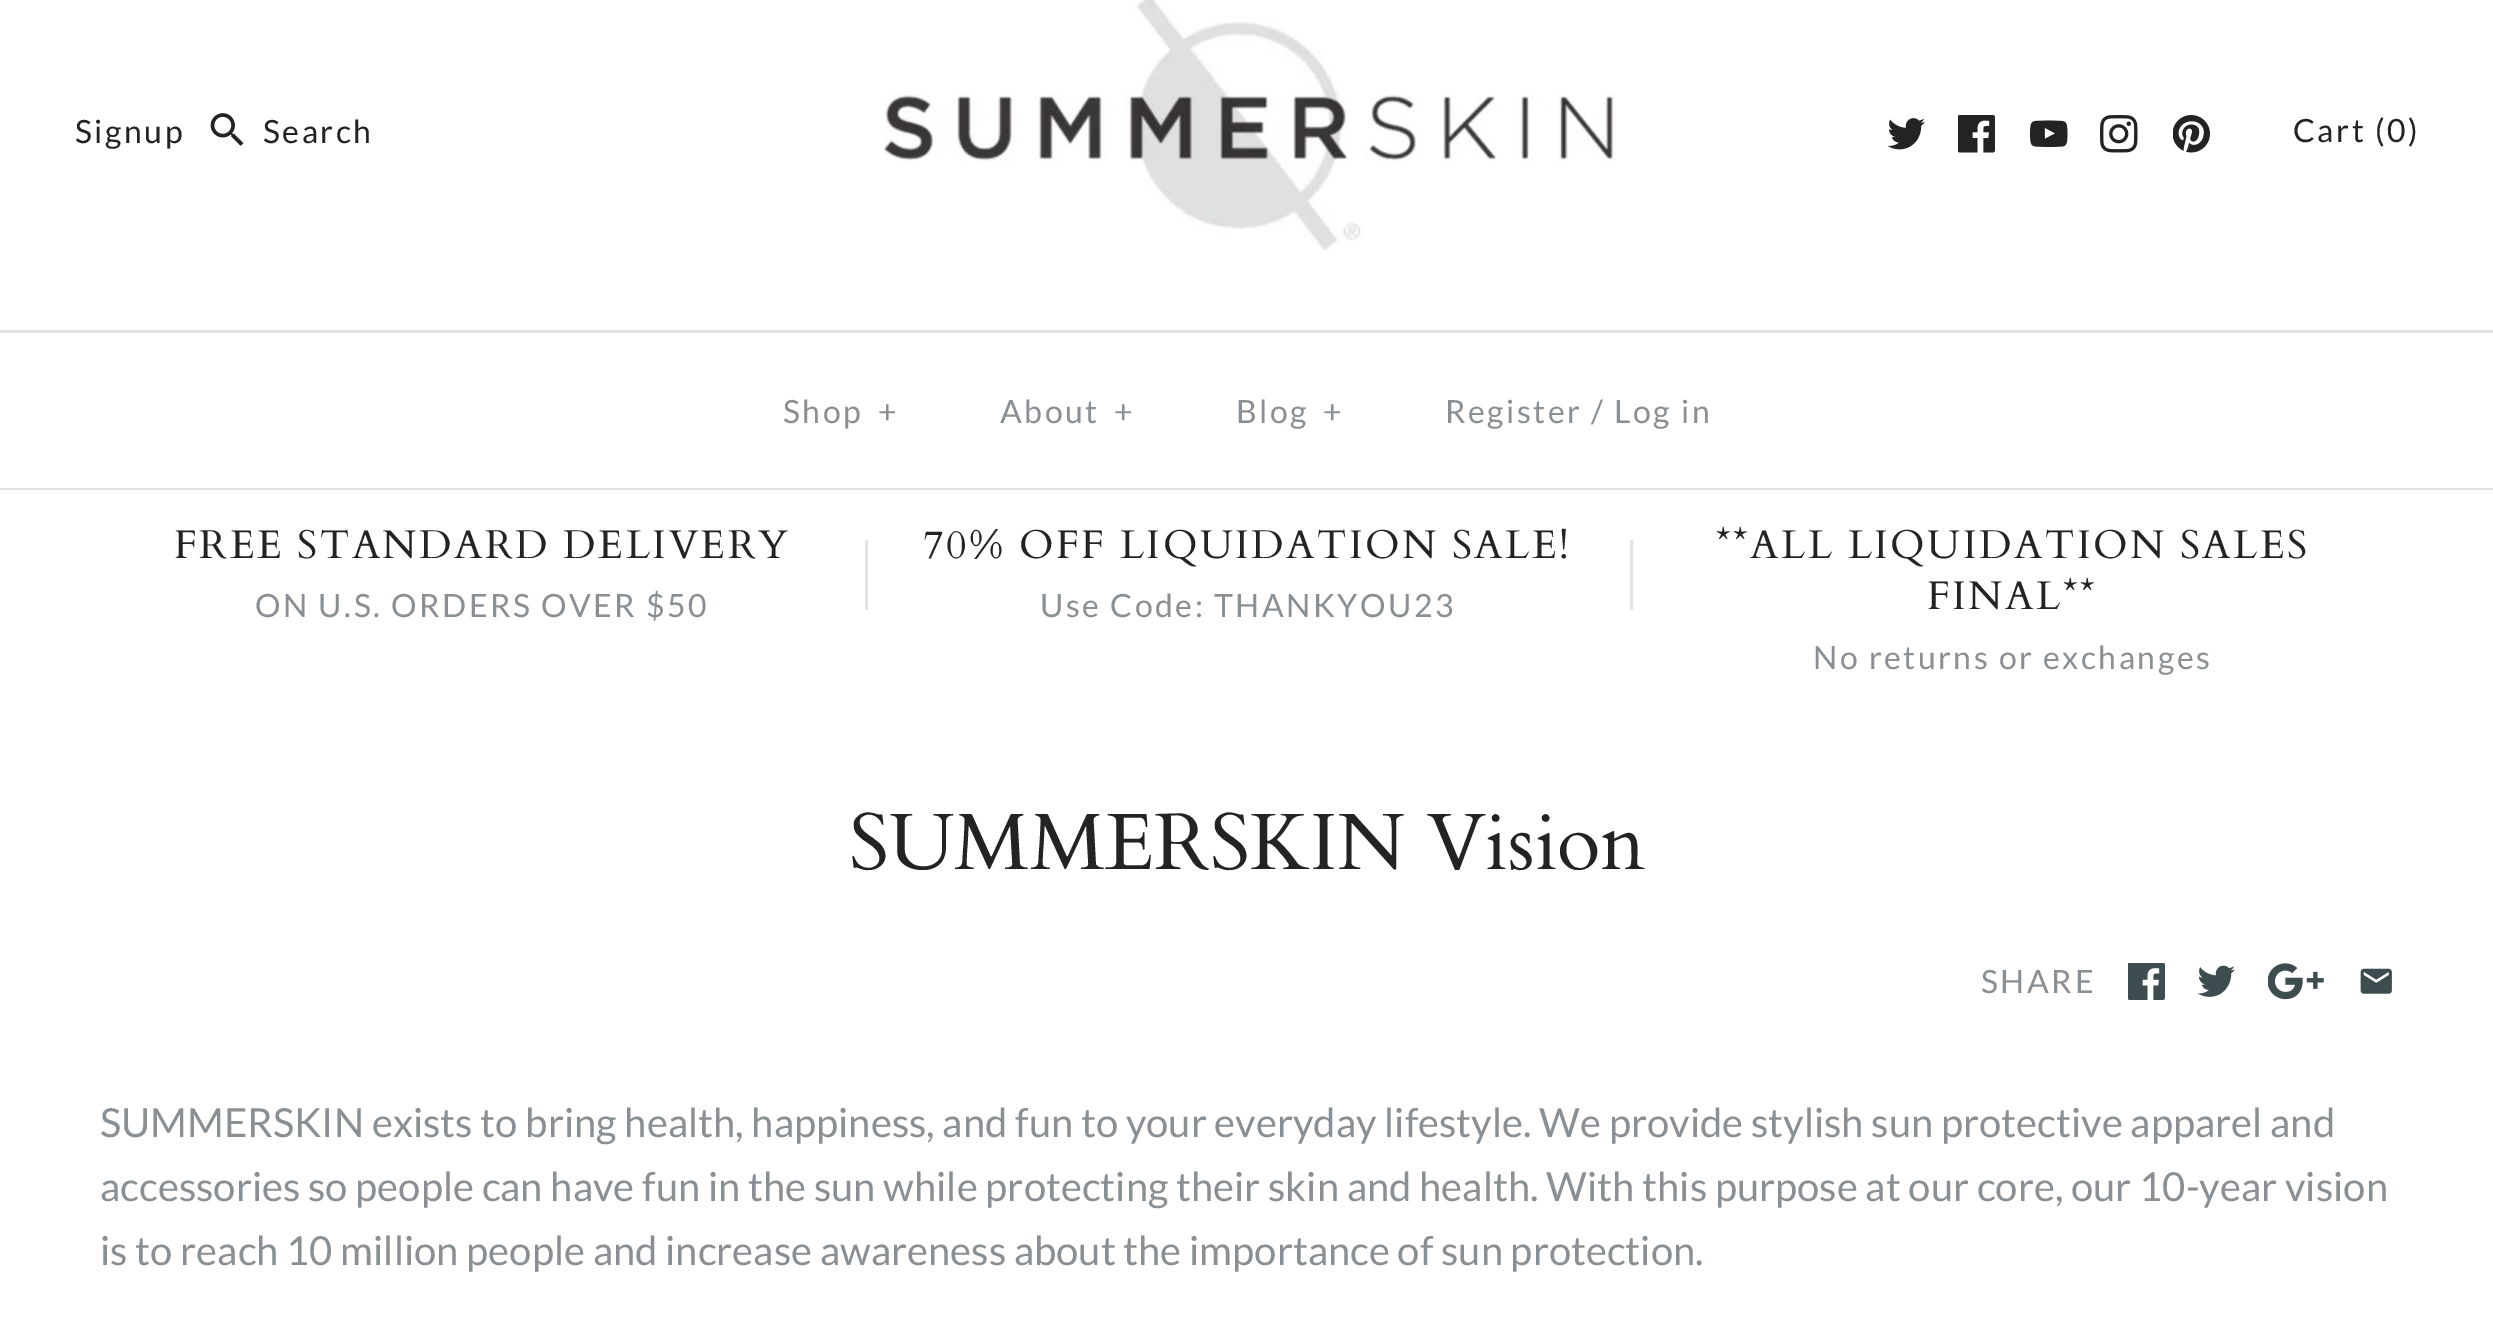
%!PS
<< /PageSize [2493 1321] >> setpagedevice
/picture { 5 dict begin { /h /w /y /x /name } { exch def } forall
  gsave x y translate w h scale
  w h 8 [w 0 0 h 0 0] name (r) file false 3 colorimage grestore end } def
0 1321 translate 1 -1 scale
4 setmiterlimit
1 setgray
0 0 2493 1321 rectfill
(img1.rgb) 884 0 732 251 picture
/Lato-Regular [32 0 0 -32 0 0] selectfont
0.137 setgray
75 143 moveto 2.5 0 (Signup) ashow
(img2.rgb) 210 113 34 33 picture
263 143 moveto 2.5 0 (Search) ashow
(img3.rgb) 1888 118 37 32 picture
(img4.rgb) 1958 115 37 38 picture
(img5.rgb) 2030 120 38 27 picture
(img6.rgb) 2100 115 38 38 picture
(img7.rgb) 2173 115 37 38 picture
2293 142 moveto 2.5 0 (Cart \(0\)) ashow
0.886 setgray
0 488 2493 2 rectfill
0 330 2493 3 rectfill
0.541 0.561 0.576 setrgbcolor
783 423 moveto 2.5 0 (Shop) ashow
878 423 moveto 2.5 0 (+) ashow
1000 423 moveto 2.5 0 (About) ashow
1114 423 moveto 2.5 0 (+) ashow
1236 423 moveto 2.5 0 (Blog) ashow
1323 423 moveto 2.5 0 (+) ashow
1445 423 moveto 2.5 0 (Register / Log in) ashow
/Cardo-Regular [40 0 0 -40 0 0] selectfont
0.137 setgray
174 558 moveto 2.5 0 (FREE STANDARD DELIVERY) ashow
/Lato-Regular [32 0 0 -32 0 0] selectfont
0.541 0.561 0.576 setrgbcolor
255 617 moveto 2.5 0 (ON U.S. ORDERS OVER $50) ashow
0.886 setgray
865 540 3 70 rectfill
/Cardo-Regular [40 0 0 -40 0 0] selectfont
0.137 setgray
923 558 moveto 2.5 0 (70% OFF LIQUIDATION SALE!) ashow
/Lato-Regular [32 0 0 -32 0 0] selectfont
0.541 0.561 0.576 setrgbcolor
1040 617 moveto 2.5 0 (Use Code: THANKYOU23) ashow
0.886 setgray
1630 540 3 70 rectfill
/Cardo-Regular [40 0 0 -40 0 0] selectfont
0.137 setgray
1716 558 moveto 2.5 0 (**ALL LIQUIDATION SALES) ashow
1927 609 moveto 2.5 0 (FINAL**) ashow
/Lato-Regular [32 0 0 -32 0 0] selectfont
0.541 0.561 0.576 setrgbcolor
1813 669 moveto 2.5 0 (No returns or exchanges) ashow
/Cardo-Regular [80 0 0 -80 0 0] selectfont
0.137 setgray
849 869 moveto (SUMMERSKIN Vision) show
/Lato-Regular [32 0 0 -32 0 0] selectfont
0.541 0.561 0.576 setrgbcolor
1981 993 moveto 2.5 0 (SHARE) ashow
(img8.rgb) 2128 963 37 37 picture
(img9.rgb) 2198 965 37 32 picture
(img10.rgb) 2268 963 56 37 picture
(img11.rgb) 2360 968 32 26 picture
/Lato-Regular [40 0 0 -40 0 0] selectfont
100 1137 moveto (SUMMERSKIN exists to bring health, happiness, and fun to your everyday lifestyle. We provide stylish sun protective apparel and) show
100 1201 moveto (accessories so people can have fun in the sun while protecting their skin and health. With this purpose at our core, our 10-year vision) show
100 1265 moveto (is to reach 10 million people and increase awareness about the importance of sun protection.) show
showpage
